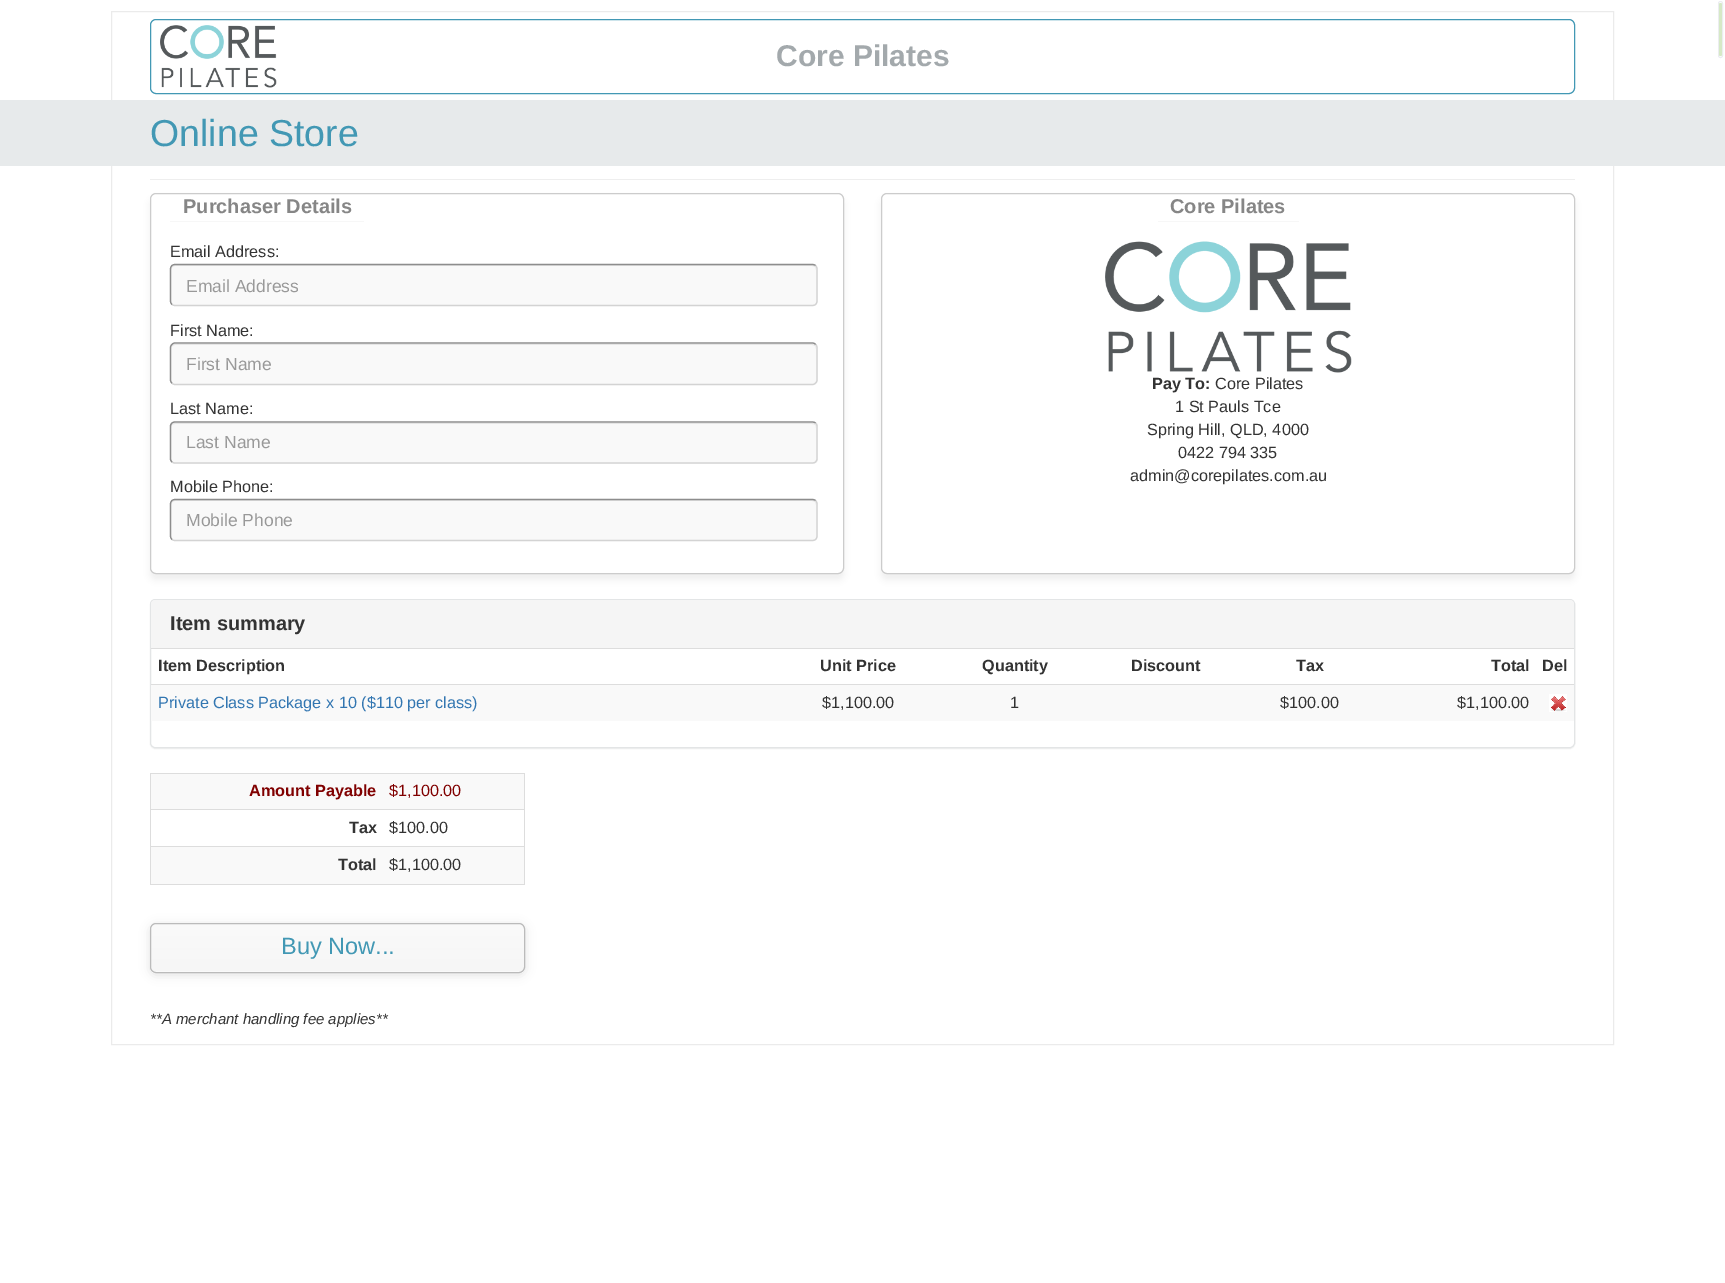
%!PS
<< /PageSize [1725 1283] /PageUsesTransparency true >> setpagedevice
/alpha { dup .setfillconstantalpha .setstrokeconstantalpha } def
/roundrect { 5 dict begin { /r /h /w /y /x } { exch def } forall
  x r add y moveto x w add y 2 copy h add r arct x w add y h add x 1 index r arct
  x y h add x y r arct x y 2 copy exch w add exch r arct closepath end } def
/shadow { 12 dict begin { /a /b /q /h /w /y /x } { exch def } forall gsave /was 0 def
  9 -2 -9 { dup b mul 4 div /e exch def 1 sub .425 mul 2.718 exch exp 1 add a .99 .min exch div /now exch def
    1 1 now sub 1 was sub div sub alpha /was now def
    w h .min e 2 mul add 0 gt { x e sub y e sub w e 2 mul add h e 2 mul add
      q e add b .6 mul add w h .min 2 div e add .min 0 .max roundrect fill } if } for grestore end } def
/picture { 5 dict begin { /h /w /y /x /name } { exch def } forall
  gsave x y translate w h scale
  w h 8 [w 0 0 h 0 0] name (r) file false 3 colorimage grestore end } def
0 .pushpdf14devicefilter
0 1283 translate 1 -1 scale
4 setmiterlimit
1 setgray
0 0 1725 1283 rectfill
0.922 setgray
111.5 11.5 1502 1033 rectstroke
0.922 0.929 0.941 setrgbcolor
1718.5 1.5 4 56 2 roundrect stroke
0.839 0.914 0.776 setrgbcolor
1719 3 3 53 1.5 roundrect fill
0.259 0.596 0.706 setrgbcolor
150.5 19.5 1424 74 5.5 roundrect stroke
(img1.rgb) 160 25 117 63 picture
/LiberationSans-Bold [30 0 0 -30 0 0] selectfont
0.639 0.663 0.675 setrgbcolor
776 66 moveto (Core Pilates) show
0.906 0.918 0.922 setrgbcolor
0 100 1725 66 rectfill
/LiberationSans-Regular [37.5 0 0 -37.5 0 0] selectfont
0.259 0.596 0.706 setrgbcolor
150 146 moveto (Online Store) show
0.933 setgray
150 179 1425 1 rectfill
gsave
newpath 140 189 moveto 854 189 lineto 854 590 lineto 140 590 lineto closepath 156 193 moveto 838 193 lineto 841.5 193 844 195.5 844 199 curveto 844 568 lineto 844 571.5 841.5 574 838 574 curveto 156 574 lineto 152.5 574 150 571.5 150 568 curveto 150 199 lineto 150 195.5 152.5 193 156 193 curveto closepath eoclip newpath
0.388 setgray
150 199 694 381 6 3 0.1 shadow
grestore
0.8 setgray
150.5 193.5 693 380 5.5 roundrect stroke
0.969 setgray
170 221 194 1 rectfill
/LiberationSans-Bold [20 0 0 -20 0 0] selectfont
0.525 setgray
183 213 moveto (Purchaser Details) show
/LiberationSans-Regular [16.25 0 0 -16.25 0 0] selectfont
0.2 setgray
170 257 moveto (Email Address:) show
0.976 setgray
170 264 648 42 5 roundrect fill
0.902 setgray
newpath 175 266 moveto 812 266 lineto 815 266 816 268 816 270 curveto 816 267 815 265 812 265 curveto 175 265 lineto 172 265 171 267 171 270 curveto 171 268 173 266 175 266 curveto closepath fill
0.827 setgray
1.2 setlinewidth
newpath 815.5 265.5 moveto 816.5 266.5 817 267.5 817 269 curveto 817 301 lineto 817 302.5 816.5 303.5 815.5 304.5 curveto 815 305 813.5 305.5 812.5 305.5 curveto 175 305.5 lineto 174 305.5 172.5 305 172 304.5 curveto stroke
0.553 setgray
newpath 172 304.5 moveto 171 303.5 170.5 302.5 170.5 301 curveto 170.5 269 lineto 170.5 267.5 171 266.5 172 265.5 curveto 172.5 265 174 264.5 175 264.5 curveto 812.5 264.5 lineto 813.5 264.5 815 265 815.5 265.5 curveto stroke
/LiberationSans-Regular [17.5 0 0 -17.5 0 0] selectfont
0.6 setgray
186 292 moveto (Email Address) show
/LiberationSans-Regular [16.25 0 0 -16.25 0 0] selectfont
0.2 setgray
170 336 moveto (First Name:) show
0.976 setgray
170 343 648 42 5 roundrect fill
0.902 setgray
newpath 175 345 moveto 812 345 lineto 815 345 816 347 816 349 curveto 816 346 815 344 812 344 curveto 175 344 lineto 172 344 171 346 171 349 curveto 171 347 173 345 175 345 curveto closepath fill
0.827 setgray
newpath 815.5 344.5 moveto 816.5 345 817 346.5 817 347.5 curveto 817 380 lineto 817 381 816.5 382.5 815.5 383 curveto 815 384 813.5 384.5 812.5 384.5 curveto 175 384.5 lineto 174 384.5 172.5 384 172 383 curveto stroke
0.553 setgray
newpath 172 383 moveto 171 382.5 170.5 381 170.5 380 curveto 170.5 347.5 lineto 170.5 346.5 171 345 172 344.5 curveto 172.5 343.5 174 343 175 343 curveto 812.5 343 lineto 813.5 343 815 343.5 815.5 344.5 curveto stroke
/LiberationSans-Regular [17.5 0 0 -17.5 0 0] selectfont
0.6 setgray
186 370 moveto (First Name) show
/LiberationSans-Regular [16.25 0 0 -16.25 0 0] selectfont
0.2 setgray
170 414 moveto (Last Name:) show
0.976 setgray
170 421 648 43 5 roundrect fill
0.902 setgray
newpath 175 424 moveto 812 424 lineto 815 424 816 425 816 428 curveto 816 425 815 423 812 423 curveto 175 423 lineto 172 423 171 425 171 428 curveto 171 425 173 424 175 424 curveto closepath fill
0.827 setgray
newpath 815.5 423 moveto 816.5 424 817 425 817 426 curveto 817 459 lineto 817 460 816.5 461 815.5 462 curveto 815 462.5 813.5 463 812.5 463 curveto 175 463 lineto 174 463 172.5 462.5 172 462 curveto stroke
0.553 setgray
newpath 172 462 moveto 171 461 170.5 460 170.5 459 curveto 170.5 426 lineto 170.5 425 171 424 172 423 curveto 172.5 422.5 174 422 175 422 curveto 812.5 422 lineto 813.5 422 815 422.5 815.5 423 curveto stroke
/LiberationSans-Regular [17.5 0 0 -17.5 0 0] selectfont
0.6 setgray
186 448 moveto (Last Name) show
/LiberationSans-Regular [16.25 0 0 -16.25 0 0] selectfont
0.2 setgray
170 492 moveto (Mobile Phone:) show
0.976 setgray
170 499 648 42 5 roundrect fill
0.902 setgray
newpath 175 501 moveto 812 501 lineto 815 501 816 503 816 505 curveto 816 502 815 500 812 500 curveto 175 500 lineto 172 500 171 502 171 505 curveto 171 503 173 501 175 501 curveto closepath fill
0.827 setgray
newpath 815.5 500.5 moveto 816.5 501.5 817 502.5 817 504 curveto 817 536 lineto 817 537.5 816.5 538.5 815.5 539.5 curveto 815 540 813.5 540.5 812.5 540.5 curveto 175 540.5 lineto 174 540.5 172.5 540 172 539.5 curveto stroke
0.553 setgray
newpath 172 539.5 moveto 171 538.5 170.5 537.5 170.5 536 curveto 170.5 504 lineto 170.5 502.5 171 501.5 172 500.5 curveto 172.5 500 174 499.5 175 499.5 curveto 812.5 499.5 lineto 813.5 499.5 815 500 815.5 500.5 curveto stroke
/LiberationSans-Regular [17.5 0 0 -17.5 0 0] selectfont
0.6 setgray
186 526 moveto (Mobile Phone) show
gsave
newpath 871 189 moveto 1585 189 lineto 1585 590 lineto 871 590 lineto closepath 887 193 moveto 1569 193 lineto 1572.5 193 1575 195.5 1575 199 curveto 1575 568 lineto 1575 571.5 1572.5 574 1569 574 curveto 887 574 lineto 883.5 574 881 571.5 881 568 curveto 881 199 lineto 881 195.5 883.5 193 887 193 curveto closepath eoclip newpath
0.388 setgray
881 199 694 381 6 3 0.1 shadow
grestore
0.8 setgray
1 setlinewidth
881.5 193.5 693 380 5.5 roundrect stroke
0.969 setgray
1158 221 141 1 rectfill
/LiberationSans-Bold [20 0 0 -20 0 0] selectfont
0.525 setgray
1170 213 moveto (Core Pilates) show
(img2.rgb) 1105 241 247 132 picture
/LiberationSans-Bold [16.25 0 0 -16.25 0 0] selectfont
0.2 setgray
1152 389 moveto (Pay To:) show
/LiberationSans-Regular [16.25 0 0 -16.25 0 0] selectfont
1215 389 moveto (Core Pilates) show
1175 412 moveto (1 St Pauls Tce) show
1147 435 moveto (Spring Hill, QLD, 4000) show
1178 458 moveto (0422 794 335) show
1130 481 moveto (admin@corepilates.com.au) show
0 setgray
150 600 1425 149 5 0.5 0.05 shadow
1 setgray
150 599 1425 149 5 roundrect fill
0.3 alpha
0.639 0.663 0.675 setrgbcolor
150.5 599.5 1424 148 4.5 roundrect stroke
1 alpha
0.961 setgray
newpath 155 600 moveto 1570 600 lineto 1572 600 1574 602 1574 604 curveto 1574 649 lineto 151 649 lineto 151 604 lineto 151 602 153 600 155 600 curveto closepath fill
0.867 setgray
151 648 1423 1 rectfill
/LiberationSans-Bold [20 0 0 -20 0 0] selectfont
0.2 setgray
170 630 moveto (Item summary) show
/LiberationSans-Bold [16.25 0 0 -16.25 0 0] selectfont
158 671 moveto (Item Description) show
820 671 moveto (Unit Price) show
982 671 moveto (Quantity) show
1131 671 moveto (Discount) show
1296 671 moveto (Tax) show
1491 671 moveto (Total) show
1542 671 moveto (Del) show
0.976 setgray
151 685 1423 36 rectfill
0.867 setgray
151 684 1423 1 rectfill
(img3.rgb) 1549 694 18 18 picture
/LiberationSans-Regular [16.25 0 0 -16.25 0 0] selectfont
0.196 0.463 0.694 setrgbcolor
158 708 moveto (Private Class Package x 10 \($110 per class\)) show
0.2 setgray
822 708 moveto ($1,100.00) show
1010 708 moveto (1) show
1280 708 moveto ($100.00) show
1457 708 moveto ($1,100.00) show
0.867 setgray
150 773 375 1 rectfill
524 773 1 112 rectfill
150 884 375 1 rectfill
150 773 1 112 rectfill
0.976 setgray
151 774 373 35 rectfill
/LiberationSans-Bold [16.25 0 0 -16.25 0 0] selectfont
0.502 0 0 setrgbcolor
249 796 moveto (Amount Payable) show
/LiberationSans-Regular [16.25 0 0 -16.25 0 0] selectfont
389 796 moveto ($1,100.00) show
/LiberationSans-Bold [16.25 0 0 -16.25 0 0] selectfont
0.2 setgray
349 833 moveto (Tax) show
0.867 setgray
150 809 375 1 rectfill
/LiberationSans-Regular [16.25 0 0 -16.25 0 0] selectfont
0.2 setgray
389 833 moveto ($100.00) show
0.976 setgray
151 847 373 37 rectfill
/LiberationSans-Bold [16.25 0 0 -16.25 0 0] selectfont
0.2 setgray
338 870 moveto (Total) show
0.867 setgray
150 846 375 1 rectfill
/LiberationSans-Regular [16.25 0 0 -16.25 0 0] selectfont
0.2 setgray
389 870 moveto ($1,100.00) show
0.388 setgray
150 925 375 50 6 5 0.2 shadow
gsave
150 923 375 50 6 roundrect clip newpath
gsave newpath 150 924 moveto 525 924 lineto 525 971 lineto 150 971 lineto closepath clip newpath
<< /ShadingType 2 /ColorSpace /DeviceRGB /Coords [338 924 338 971] /Extend [true true] /Function << /FunctionType 2 /Domain [0 1] /C0 [0.98 0.98 0.98] /C1 [0.965 0.965 0.965] /N 1 >> >> shfill grestore
gsave newpath 150 971 moveto 525 971 lineto 525 973 lineto 150 973 lineto closepath clip newpath
<< /ShadingType 2 /ColorSpace /DeviceRGB /Coords [338 971 338 1019] /Extend [true true] /Function << /FunctionType 2 /Domain [0 1] /C0 [0.98 0.98 0.98] /C1 [0.965 0.965 0.965] /N 1 >> >> shfill grestore
grestore
0.733 setgray
150.5 923.5 374 49 5.5 roundrect stroke
/LiberationSans-Regular [23.5 0 0 -23.5 0 0] selectfont
0.259 0.596 0.706 setrgbcolor
281 954 moveto (Buy Now...) show
/LiberationSans-Italic [15 0 0 -15 0 0] selectfont
0.2 setgray
150 1024 moveto (**A merchant handling fee applies**) show
.poppdf14devicefilter showpage
